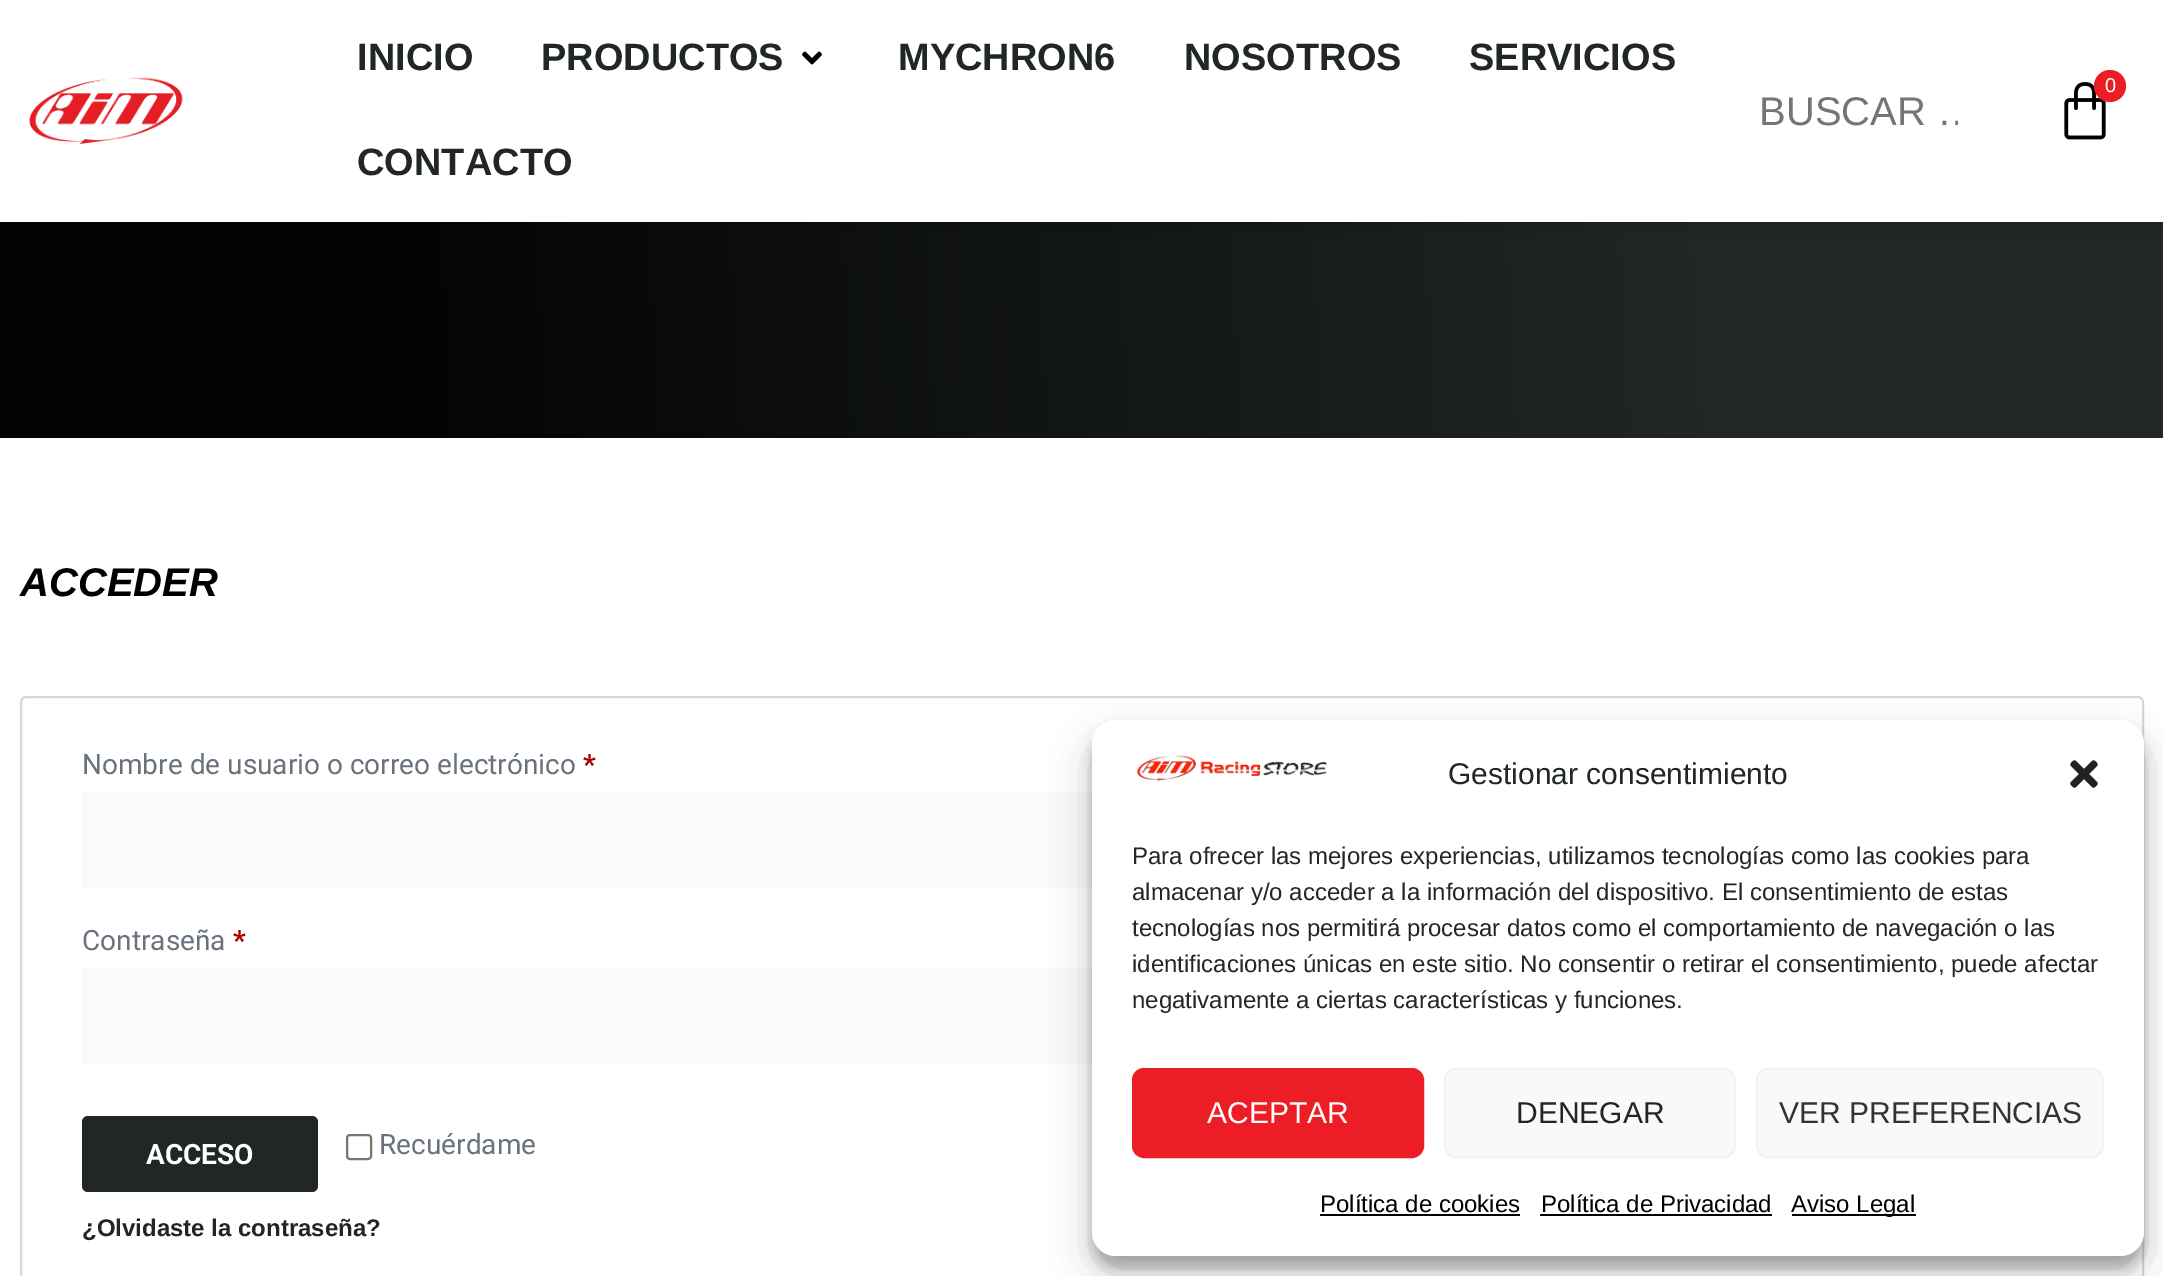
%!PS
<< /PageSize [2163 1276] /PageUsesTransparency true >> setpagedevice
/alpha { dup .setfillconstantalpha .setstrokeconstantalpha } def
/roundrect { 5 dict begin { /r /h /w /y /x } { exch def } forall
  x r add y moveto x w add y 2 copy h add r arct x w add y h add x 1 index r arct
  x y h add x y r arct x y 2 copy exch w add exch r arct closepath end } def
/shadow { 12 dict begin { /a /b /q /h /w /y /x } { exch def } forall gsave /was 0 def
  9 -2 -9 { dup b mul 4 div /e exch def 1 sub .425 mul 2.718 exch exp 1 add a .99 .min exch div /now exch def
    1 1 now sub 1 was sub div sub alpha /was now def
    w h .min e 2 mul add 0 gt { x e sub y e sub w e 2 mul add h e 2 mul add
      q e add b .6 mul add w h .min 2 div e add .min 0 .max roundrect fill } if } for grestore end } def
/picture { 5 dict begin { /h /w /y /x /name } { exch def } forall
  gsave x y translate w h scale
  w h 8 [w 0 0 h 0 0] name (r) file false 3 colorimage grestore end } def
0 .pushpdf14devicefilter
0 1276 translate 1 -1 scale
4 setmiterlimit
1 setgray
0 0 2163 1276 rectfill
gsave newpath 0 222 moveto 2163 222 lineto 2163 438 lineto 0 438 lineto closepath clip newpath
<< /ShadingType 2 /ColorSpace /DeviceRGB /Coords [-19 67 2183 -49] /Extend [true true] /Function << /FunctionType 3 /Domain [0 1] /Functions [<< /FunctionType 2 /Domain [0 1] /C0 [0.012 0.016 0.016] /C1 [0.012 0.016 0.016] /N 1 >> << /FunctionType 2 /Domain [0 1] /C0 [0.012 0.016 0.016] /C1 [0.129 0.149 0.149] /N 1 >> << /FunctionType 2 /Domain [0 1] /C0 [0.129 0.149 0.149] /C1 [0.129 0.149 0.149] /N 1 >>] /Bounds [0.18 0.77] /Encode [0 1 0 1 0 1] >> >> shfill grestore
0 setgray
0 0 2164 222 0 10 0.28 shadow
1 setgray
0 0 2163 222 rectfill
(img1.rgb) 29 77 154 67 picture
/LiberationSans-Bold [38 0 0 -38 0 0] selectfont
0.129 0.149 0.149 setrgbcolor
357 70 moveto (INICIO) show
541 70 moveto (PRODUCTOS) show
(img2.rgb) 802 51 20 14 picture
898 70 moveto (MYCHRON6) show
1184 70 moveto (NOSOTROS) show
1469 70 moveto (SERVICIOS) show
357 175 moveto (CONTACTO) show
(img3.rgb) 2064 82 42 58 picture
0.925 0.114 0.145 setrgbcolor
newpath 2110 86 16 0 360 arc closepath fill
/LiberationSans-Regular [20 0 0 -20 0 0] selectfont
1 setgray
2105 92 moveto (0) show
gsave
1758 90 200 46 rectclip
/LiberationSans-Regular [40 0 0 -40 0 0] selectfont
0.459 setgray
1759 125 moveto (BUSCAR …) show
grestore
/LiberationSans-BoldItalic [40 0 0 -40 0 0] selectfont
0 setgray
20 596 moveto (ACCEDER) show
0.835 0.847 0.863 setrgbcolor
2 setlinewidth
21 697 2122 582 5 roundrect stroke
/Roboto-Regular [28 0 0 -28 0 0] selectfont
0.412 0.447 0.49 setrgbcolor
82 774 moveto (Nombre de usuario o correo electrónico) show
/Roboto-Bold [28 0 0 -28 0 0] selectfont
0.667 0 0 setrgbcolor
583 774 moveto (*) show
0.976 0.98 0.98 setrgbcolor
82 792 1010 96 rectfill
/Roboto-Regular [28 0 0 -28 0 0] selectfont
0.412 0.447 0.49 setrgbcolor
82 950 moveto (Contraseña) show
/Roboto-Bold [28 0 0 -28 0 0] selectfont
0.667 0 0 setrgbcolor
233 950 moveto (*) show
0.976 0.98 0.98 setrgbcolor
82 968 1010 96 rectfill
0.129 0.149 0.149 setrgbcolor
82 1116 236 76 6 roundrect fill
1 setgray
146 1164 moveto (ACCESO) show
0.463 setgray
347 1135 24 24 3 roundrect stroke
/Roboto-Regular [28 0 0 -28 0 0] selectfont
0.412 0.447 0.49 setrgbcolor
379 1154 moveto (Recuérdame) show
/LiberationSans-Bold [24 0 0 -24 0 0] selectfont
0.129 0.149 0.149 setrgbcolor
82 1236 moveto (¿Olvidaste la contraseña?) show
0 setgray
1092 732 1052 536 24 6 0.23 shadow
1092 740 1052 536 24 20 0.19 shadow
1 setgray
1092 720 1052 536 24 roundrect fill
(img4.rgb) 1136 755 191 26 picture
/LiberationSans-Regular [30 0 0 -30 0 0] selectfont
0.129 0.149 0.149 setrgbcolor
1448 784 moveto (Gestionar consentimiento) show
(img5.rgb) 2070 760 28 28 picture
/LiberationSans-Regular [24 0 0 -24 0 0] selectfont
1132 864 moveto (Para ofrecer las mejores experiencias, utilizamos tecnologías como las cookies para) show
1132 900 moveto (almacenar y/o acceder a la información del dispositivo. El consentimiento de estas) show
1132 936 moveto (tecnologías nos permitirá procesar datos como el comportamiento de navegación o las) show
1132 972 moveto (identificaciones únicas en este sitio. No consentir o retirar el consentimiento, puede afectar) show
1132 1008 moveto (negativamente a ciertas características y funciones.) show
0.925 0.114 0.145 setrgbcolor
1133 1069 290 88 11 roundrect gsave fill grestore
stroke
/LiberationSans-Regular [30 0 0 -30 0 0] selectfont
1 setgray
1207 1123 moveto (ACEPTAR) show
0.976 setgray
1445 1069 290 88 11 roundrect gsave fill grestore
0.949 setgray
stroke
0.129 0.149 0.149 setrgbcolor
1516 1123 moveto (DENEGAR) show
0.976 setgray
1757 1069 346 88 11 roundrect gsave fill grestore
0.949 setgray
stroke
0.2 setgray
1779 1123 moveto (VER PREFERENCIAS) show
/LiberationSans-Regular [24 0 0 -24 0 0] selectfont
0 setgray
1320 1212 moveto (Política de cookies) show
1320 1214 200 2 rectfill
1541 1212 moveto (Política de Privacidad) show
1540 1214 232 2 rectfill
1792 1214 124 2 rectfill
1791 1212 moveto (Aviso Legal) show
.poppdf14devicefilter showpage
